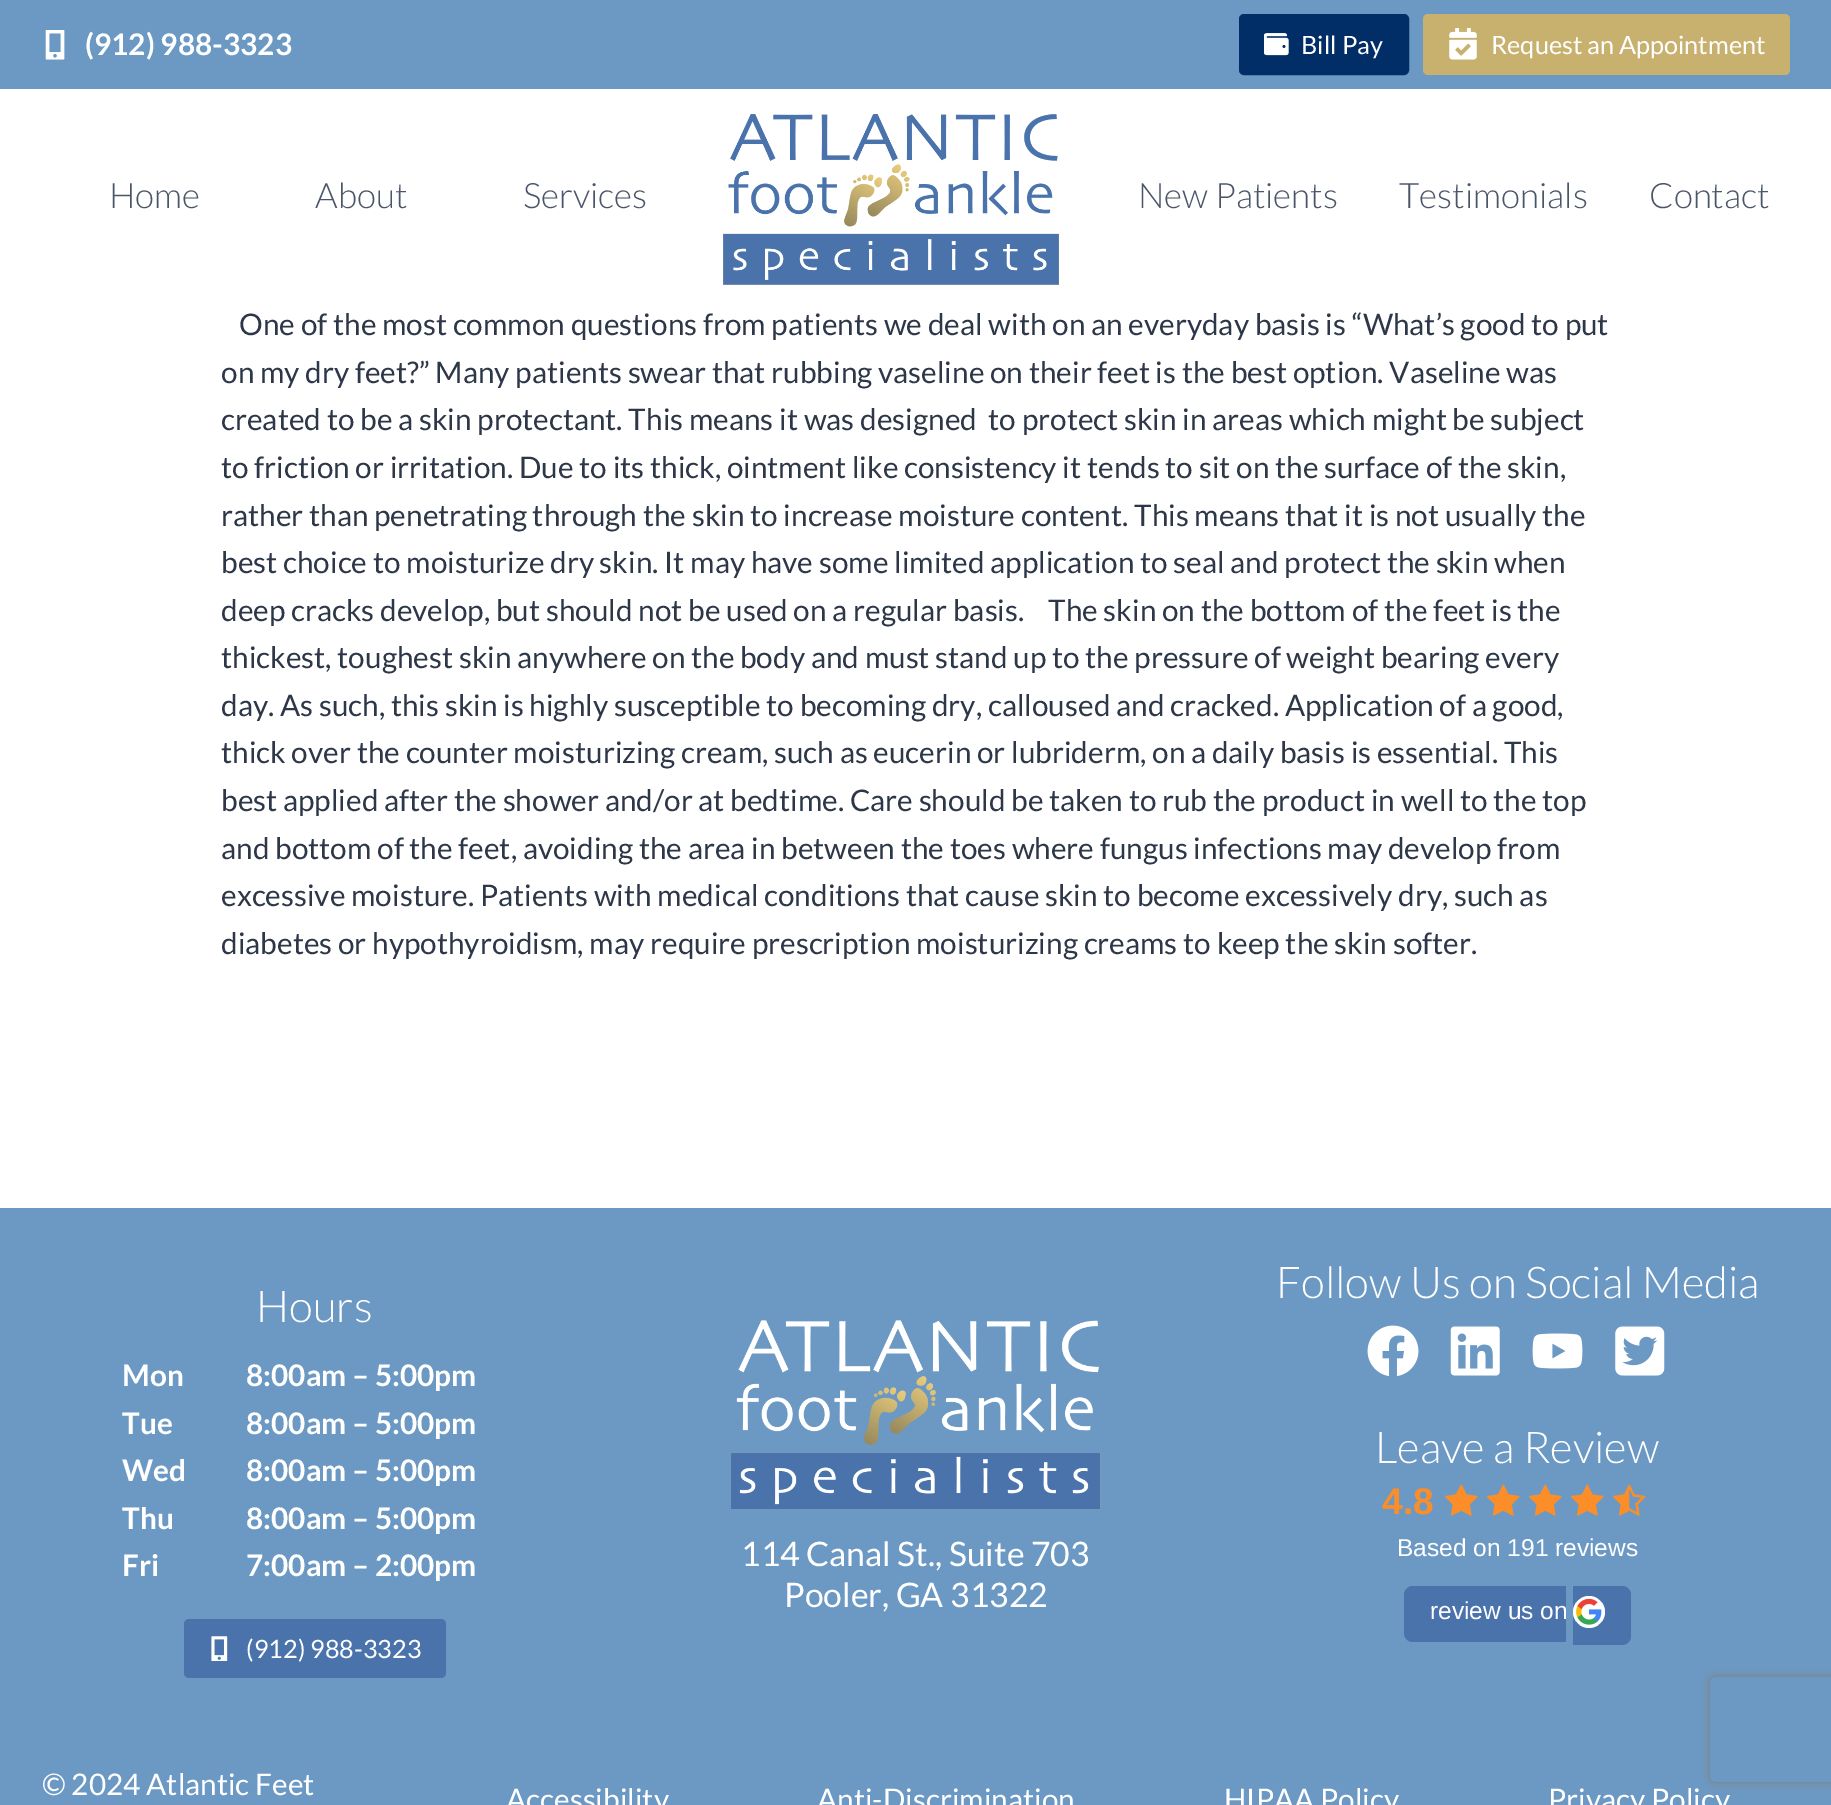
%!PS
<< /PageSize [1831 1805] /PageUsesTransparency true >> setpagedevice
/alpha { dup .setfillconstantalpha .setstrokeconstantalpha } def
/roundrect { 5 dict begin { /r /h /w /y /x } { exch def } forall
  x r add y moveto x w add y 2 copy h add r arct x w add y h add x 1 index r arct
  x y h add x y r arct x y 2 copy exch w add exch r arct closepath end } def
/shadow { 12 dict begin { /a /b /q /h /w /y /x } { exch def } forall gsave /was 0 def
  9 -2 -9 { dup b mul 4 div /e exch def 1 sub .425 mul 2.718 exch exp 1 add a .99 .min exch div /now exch def
    1 1 now sub 1 was sub div sub alpha /was now def
    w h .min e 2 mul add 0 gt { x e sub y e sub w e 2 mul add h e 2 mul add
      q e add b .6 mul add w h .min 2 div e add .min 0 .max roundrect fill } if } for grestore end } def
/picture { 5 dict begin { /h /w /y /x /name } { exch def } forall
  gsave x y translate w h scale
  w h 8 [w 0 0 h 0 0] name (r) file false 3 colorimage grestore end } def
0 .pushpdf14devicefilter
0 1805 translate 1 -1 scale
4 setmiterlimit
1 setgray
0 0 1831 1805 rectfill
0.42 0.6 0.765 setrgbcolor
0 0 1831 89 rectfill
(img1.rgb) 45 30 20 30 picture
/Lato-Bold [29.75 0 0 -29.75 0 0] selectfont
1 setgray
85 55 moveto (\(912\) 988-3323) show
0.004 0.18 0.4 setrgbcolor
1240 15 168 59 4 roundrect gsave fill grestore
2 setlinewidth
stroke
(img2.rgb) 1264 33 25 23 picture
/Lato-Regular [25.25 0 0 -25.25 0 0] selectfont
1 setgray
1301 54 moveto (Bill Pay) show
0.784 0.694 0.435 setrgbcolor
1423 14 367 61 5 roundrect fill
(img3.rgb) 1449 28 28 32 picture
1 setgray
1491 54 moveto (Request an Appointment) show
/Lato-Light [35 0 0 -35 0 0] selectfont
0.29 0.333 0.408 setrgbcolor
109 208 moveto (Home) show
315 208 moveto (About) show
523 208 moveto (Services) show
(img4.rgb) 723 114 336 171 picture
1138 208 moveto (New Patients) show
1399 208 moveto (Testimonials) show
1649 208 moveto (Contact) show
/Lato-Regular [29.75 0 0 -29.75 0 0] selectfont
0.176 0.216 0.282 setrgbcolor
239 335 moveto (One of the most common questions from patients we deal with on an everyday basis is “What’s good to put) show
221 383 moveto (on my dry feet?” Many patients swear that rubbing vaseline on their feet is the best option. Vaseline was) show
221 430 moveto (created to be a skin protectant. This means it was designed  to protect skin in areas which might be subject) show
221 478 moveto (to friction or irritation. Due to its thick, ointment like consistency it tends to sit on the surface of the skin,) show
221 526 moveto (rather than penetrating through the skin to increase moisture content. This means that it is not usually the) show
221 573 moveto (best choice to moisturize dry skin. It may have some limited application to seal and protect the skin when) show
221 621 moveto (deep cracks develop, but should not be used on a regular basis.) show
1048 621 moveto (The skin on the bottom of the feet is the) show
221 668 moveto (thickest, toughest skin anywhere on the body and must stand up to the pressure of weight bearing every) show
221 716 moveto (day. As such, this skin is highly susceptible to becoming dry, calloused and cracked. Application of a good,) show
221 763 moveto (thick over the counter moisturizing cream, such as eucerin or lubriderm, on a daily basis is essential. This) show
221 811 moveto (best applied after the shower and/or at bedtime. Care should be taken to rub the product in well to the top) show
221 859 moveto (and bottom of the feet, avoiding the area in between the toes where fungus infections may develop from) show
221 906 moveto (excessive moisture. Patients with medical conditions that cause skin to become excessively dry, such as) show
221 954 moveto (diabetes or hypothyroidism, may require prescription moisturizing creams to keep the skin softer.) show
0.42 0.6 0.765 setrgbcolor
0 1208 1831 597 rectfill
/Lato-Light [43.75 0 0 -43.75 0 0] selectfont
1 setgray
256 1322 moveto (Hours) show
/Lato-Bold [29.75 0 0 -29.75 0 0] selectfont
122 1386 moveto (Mon) show
122 1434 moveto (Tue) show
122 1481 moveto (Wed) show
122 1529 moveto (Thu) show
122 1576 moveto (Fri) show
246 1386 moveto (8:00am – 5:00pm) show
246 1434 moveto (8:00am – 5:00pm) show
246 1481 moveto (8:00am – 5:00pm) show
246 1529 moveto (8:00am – 5:00pm) show
246 1576 moveto (7:00am – 2:00pm) show
0.29 0.451 0.675 setrgbcolor
184 1619 262 59 5 roundrect fill
(img5.rgb) 211 1636 17 25 picture
/Lato-Regular [25.25 0 0 -25.25 0 0] selectfont
1 setgray
246 1658 moveto (\(912\) 988-3323) show
(img6.rgb) 730 1320 371 190 picture
/Lato-Regular [33.75 0 0 -33.75 0 0] selectfont
741 1566 moveto (114 Canal St., Suite 703) show
784 1607 moveto (Pooler, GA 31322) show
/Lato-Light [43.75 0 0 -43.75 0 0] selectfont
1276 1298 moveto (Follow Us on Social Media) show
(img7.rgb) 1367 1325 52 52 picture
(img8.rgb) 1450 1326 50 50 picture
(img9.rgb) 1532 1333 51 36 picture
(img10.rgb) 1615 1326 50 50 picture
1375 1463 moveto (Leave a Review) show
/LiberationSans-Bold [37 0 0 -37 0 0] selectfont
0.984 0.557 0.157 setrgbcolor
1382 1514 moveto (4.8) show
(img11.rgb) 1445 1484 33 32 picture
(img11.rgb) 1487 1484 33 32 picture
(img11.rgb) 1529 1484 33 32 picture
(img11.rgb) 1571 1484 33 32 picture
(img12.rgb) 1613 1484 33 32 picture
/LiberationSans-Regular [24.5 0 0 -24.5 0 0] selectfont
1 setgray
1397 1556 moveto (Based on 191 reviews) show
0.29 0.451 0.675 setrgbcolor
newpath 1413 1586 moveto 1566 1586 lineto 1566 1642 lineto 1413 1642 lineto 1408 1642 1404 1638 1404 1633 curveto 1404 1595 lineto 1404 1590 1408 1586 1413 1586 curveto closepath fill
newpath 1573 1586 moveto 1622 1586 lineto 1627 1586 1631 1590 1631 1595 curveto 1631 1636 lineto 1631 1641 1627 1645 1622 1645 curveto 1573 1645 lineto closepath fill
1 setgray
1430 1619 moveto (review us on) show
newpath 1589 1612 16 0 360 arc closepath fill
(img13.rgb) 1576 1598 26 27 picture
/Lato-Regular [29.75 0 0 -29.75 0 0] selectfont
42 1795 moveto (© 2024 Atlantic Feet) show
506 1810 moveto (Accessibility) show
817 1810 moveto (Anti-Discrimination) show
1224 1810 moveto (HIPAA Policy) show
gsave
newpath 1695 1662 moveto 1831 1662 lineto 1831 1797 lineto 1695 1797 lineto closepath 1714 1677 moveto 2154 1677 lineto 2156 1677 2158 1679 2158 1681 curveto 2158 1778 lineto 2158 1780 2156 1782 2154 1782 curveto 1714 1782 lineto 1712 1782 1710 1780 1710 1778 curveto 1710 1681 lineto 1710 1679 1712 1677 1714 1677 curveto closepath eoclip newpath
0.502 setgray
1710 1677 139 105 4 4.5 1 shadow
grestore
1548 1810 moveto (Privacy Policy) show
.poppdf14devicefilter showpage
